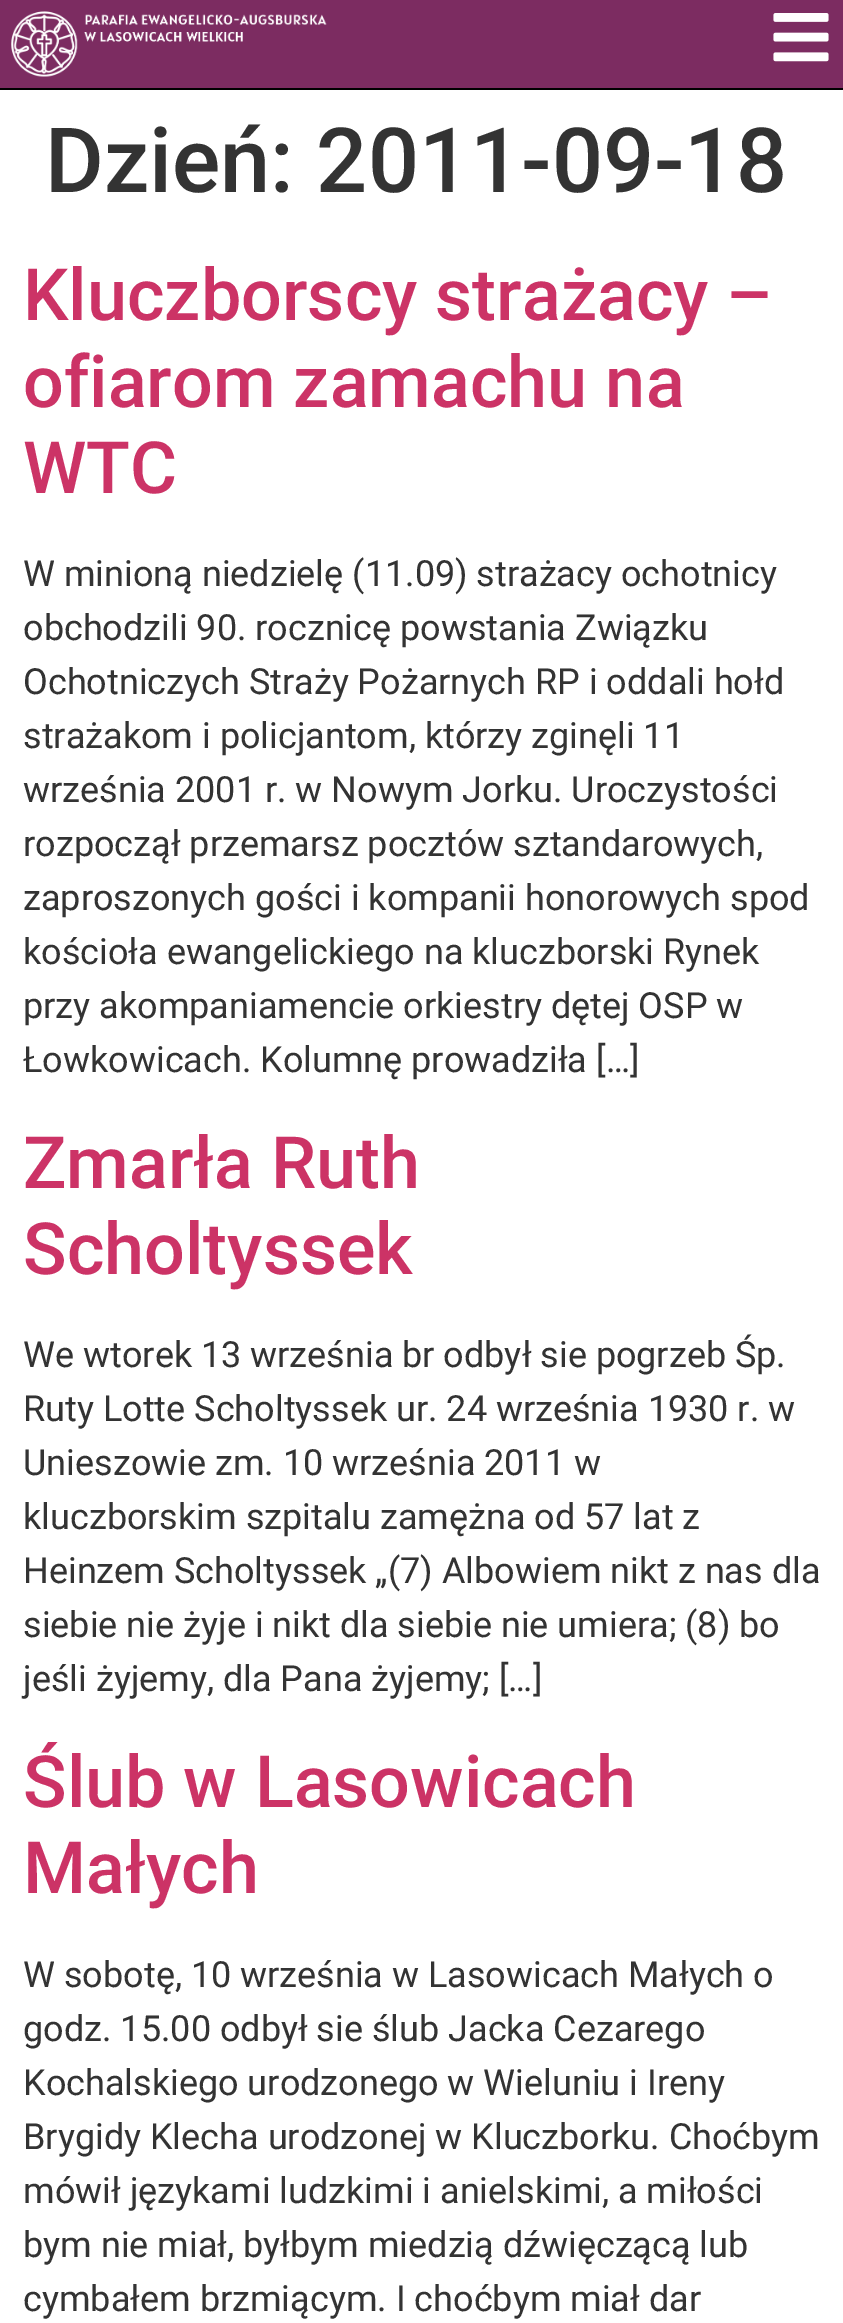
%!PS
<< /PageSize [843 2323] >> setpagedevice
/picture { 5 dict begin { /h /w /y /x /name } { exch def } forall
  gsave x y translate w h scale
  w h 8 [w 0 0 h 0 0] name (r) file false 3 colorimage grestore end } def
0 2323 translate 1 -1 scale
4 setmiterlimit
1 setgray
0 0 843 2323 rectfill
0.486 0.173 0.38 setrgbcolor
0 0 843 88 rectfill
0 setgray
0 88 843 2 rectfill
(img1.rgb) 11 11 316 66 picture
(img2.rgb) 773 13 56 49 picture
/Roboto-Medium [90 0 0 -90 0 0] selectfont
0.2 setgray
45 192 moveto (Dzień: 2011-09-18) show
/Roboto-Medium [72 0 0 -72 0 0] selectfont
0.8 0.2 0.4 setrgbcolor
23 320 moveto (Kluczborscy strażacy –) show
23 407 moveto (ofiarom zamachu na) show
23 493 moveto (WTC) show
/Roboto-Regular [36 0 0 -36 0 0] selectfont
0.2 setgray
23 586 moveto (W minioną niedzielę \(11.09\) strażacy ochotnicy) show
23 640 moveto (obchodzili 90. rocznicę powstania Związku) show
23 694 moveto (Ochotniczych Straży Pożarnych RP i oddali hołd) show
23 748 moveto (strażakom i policjantom, którzy zginęli 11) show
23 802 moveto (września 2001 r. w Nowym Jorku. Uroczystości) show
23 856 moveto (rozpoczął przemarsz pocztów sztandarowych,) show
23 910 moveto (zaproszonych gości i kompanii honorowych spod) show
23 964 moveto (kościoła ewangelickiego na kluczborski Rynek) show
23 1018 moveto (przy akompaniamencie orkiestry dętej OSP w) show
23 1072 moveto (Łowkowicach. Kolumnę prowadziła […]) show
/Roboto-Medium [72 0 0 -72 0 0] selectfont
0.8 0.2 0.4 setrgbcolor
23 1188 moveto (Zmarła Ruth) show
23 1274 moveto (Scholtyssek) show
/Roboto-Regular [36 0 0 -36 0 0] selectfont
0.2 setgray
23 1367 moveto (We wtorek 13 września br odbył sie pogrzeb Śp.) show
23 1421 moveto (Ruty Lotte Scholtyssek ur. 24 września 1930 r. w) show
23 1475 moveto (Unieszowie zm. 10 września 2011 w) show
23 1529 moveto (kluczborskim szpitalu zamężna od 57 lat z) show
23 1583 moveto (Heinzem Scholtyssek „\(7\) Albowiem nikt z nas dla) show
23 1637 moveto (siebie nie żyje i nikt dla siebie nie umiera; \(8\) bo) show
23 1691 moveto (jeśli żyjemy, dla Pana żyjemy; […]) show
/Roboto-Medium [72 0 0 -72 0 0] selectfont
0.8 0.2 0.4 setrgbcolor
23 1807 moveto (Ślub w Lasowicach) show
23 1893 moveto (Małych) show
/Roboto-Regular [36 0 0 -36 0 0] selectfont
0.2 setgray
23 1987 moveto (W sobotę, 10 września w Lasowicach Małych o) show
23 2041 moveto (godz. 15.00 odbył sie ślub Jacka Cezarego) show
23 2095 moveto (Kochalskiego urodzonego w Wieluniu i Ireny) show
23 2149 moveto (Brygidy Klecha urodzonej w Kluczborku. Choćbym) show
23 2203 moveto (mówił językami ludzkimi i anielskimi, a miłości) show
23 2257 moveto (bym nie miał, byłbym miedzią dźwięczącą lub) show
23 2311 moveto (cymbałem brzmiącym. I choćbym miał dar) show
showpage
